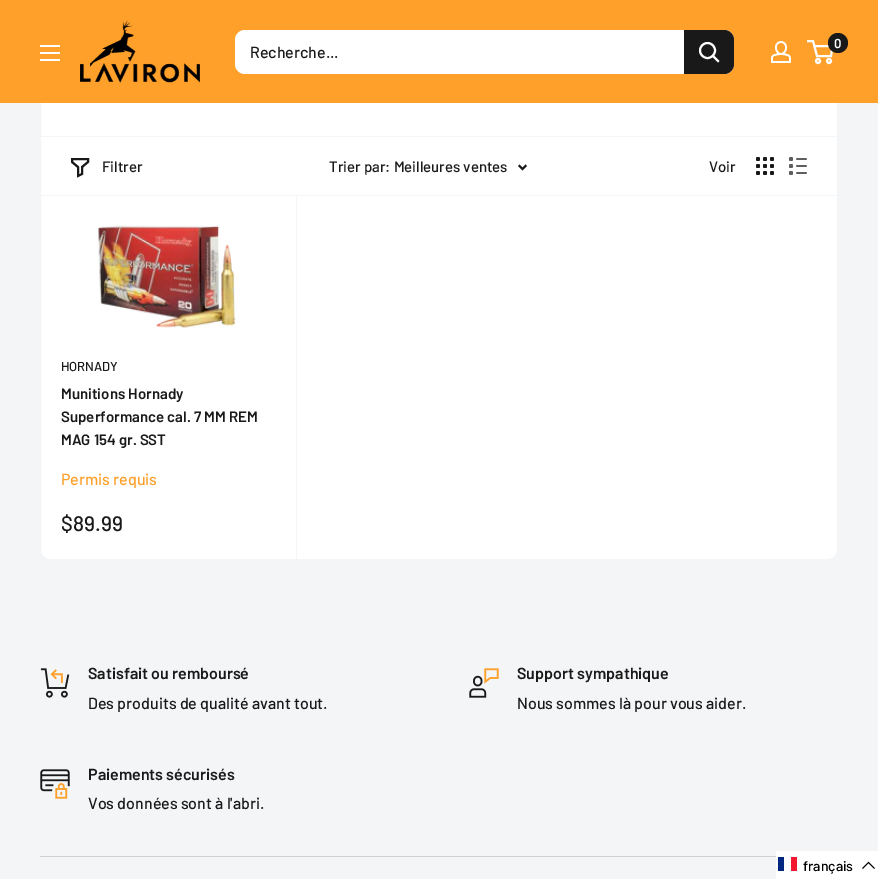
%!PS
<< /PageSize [878 879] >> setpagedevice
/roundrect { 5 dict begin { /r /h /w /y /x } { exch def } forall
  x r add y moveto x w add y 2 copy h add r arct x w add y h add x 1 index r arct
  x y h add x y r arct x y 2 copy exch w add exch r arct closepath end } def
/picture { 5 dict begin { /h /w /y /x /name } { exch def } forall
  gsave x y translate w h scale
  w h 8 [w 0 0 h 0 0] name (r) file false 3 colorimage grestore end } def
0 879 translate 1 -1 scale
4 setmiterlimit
0.953 0.961 0.965 setrgbcolor
0 0 878 879 rectfill
1 setgray
40.5 3.5 797 556 9.5 roundrect gsave fill grestore
0.953 0.961 0.965 setrgbcolor
stroke
0.996 0.627 0.165 setrgbcolor
0 0 878 103 rectfill
(img1.rgb) 80 20 120 63 picture
(img2.rgb) 771 41 20 22 picture
1 setgray
2 setlinewidth
newpath 818 61 2 0 360 arc closepath stroke
newpath 829 61 2 0 360 arc closepath stroke
newpath 814.5 46 moveto 832.5 46 lineto 831 56 lineto 817 56 lineto 813 41 lineto 807 41 lineto stroke
0.098 setgray
newpath 838 43 10 0 360 arc closepath fill
/Barlow-SemiBold [13 0 0 -13 0 0] selectfont
1 setgray
834 48 moveto (0) show
(img3.rgb) 40 45 20 16 picture
235 30 499 44 10 roundrect fill
/Barlow-Medium [16 0 0 -16 0 0] selectfont
0.098 setgray
250 58 moveto (Recherche...) show
newpath 684 30 moveto 724 30 lineto 729.5 30 734 34.5 734 40 curveto 734 64 lineto 734 69.5 729.5 74 724 74 curveto 684 74 lineto closepath fill
1 setgray
2 setlinecap
newpath 718 61 moveto 713 56 lineto stroke
0 setlinecap
newpath 707.5 50.5 7.5 0 360 arc closepath stroke
0.953 0.961 0.965 setrgbcolor
41 136 796 1 rectfill
296 195 1 364 rectfill
41 195 796 1 rectfill
0.098 setgray
2 setlinecap
newpath 88 162 moveto 82 167 lineto 82 174 lineto 78 176 lineto 78 167 lineto 72 162 lineto 72 159 lineto 88 159 lineto closepath stroke
/Barlow-Medium [15 0 0 -15 0 0] selectfont
102 172 moveto (Filtrer) show
329 172 moveto (Trier par: Meilleures ventes) show
1.9 setlinewidth
newpath 525.5 166 moveto 522.5 169 lineto 519.5 166 lineto stroke
709 172 moveto (Voir) show
(img4.rgb) 756 157 18 18 picture
(img5.rgb) 789 157 18 18 picture
(img6.rgb) 97 225 139 103 picture
/Barlow-Medium [13 0 0 -13 0 0] selectfont
61 371 moveto (HORNADY) show
/Barlow-SemiBold [15 0 0 -15 0 0] selectfont
61 399 moveto (Munitions Hornady) show
61 422 moveto (Superformance cal. 7 MM REM) show
61 445 moveto (MAG 154 gr. SST) show
/Barlow-Medium [16 0 0 -16 0 0] selectfont
0.996 0.627 0.165 setrgbcolor
61 485 moveto (Permis requis) show
/Barlow-Medium [21 0 0 -21 0 0] selectfont
0.098 setgray
61 531 moveto ($89.99) show
(img7.rgb) 40 668 30 30 picture
/Barlow-SemiBold [16 0 0 -16 0 0] selectfont
88 679 moveto (Satisfait ou remboursé) show
/Barlow-Medium [16 0 0 -16 0 0] selectfont
88 709 moveto (Des produits de qualité avant tout.) show
(img8.rgb) 469 668 30 30 picture
/Barlow-SemiBold [16 0 0 -16 0 0] selectfont
517 679 moveto (Support sympathique) show
/Barlow-Medium [16 0 0 -16 0 0] selectfont
517 709 moveto (Nous sommes là pour vous aider.) show
(img9.rgb) 40 769 30 30 picture
/Barlow-SemiBold [16 0 0 -16 0 0] selectfont
88 780 moveto (Paiements sécurisés) show
/Barlow-Medium [16 0 0 -16 0 0] selectfont
88 809 moveto (Vos données sont à l'abri.) show
0.816 setgray
40 856 736 1 rectfill
1 setgray
776 851 102 28 rectfill
0 0.149 0.498 setrgbcolor
778 857 6 14 rectfill
0.953 0.094 0.188 setrgbcolor
791 857 6 14 rectfill
/Barlow-Medium [14 0 0 -14 0 0] selectfont
0 setgray
803 871 moveto (français) show
1 setlinewidth
0 setlinecap
newpath 874.5 868.5 moveto 868.5 862.5 lineto 862.5 868.5 lineto stroke
showpage
